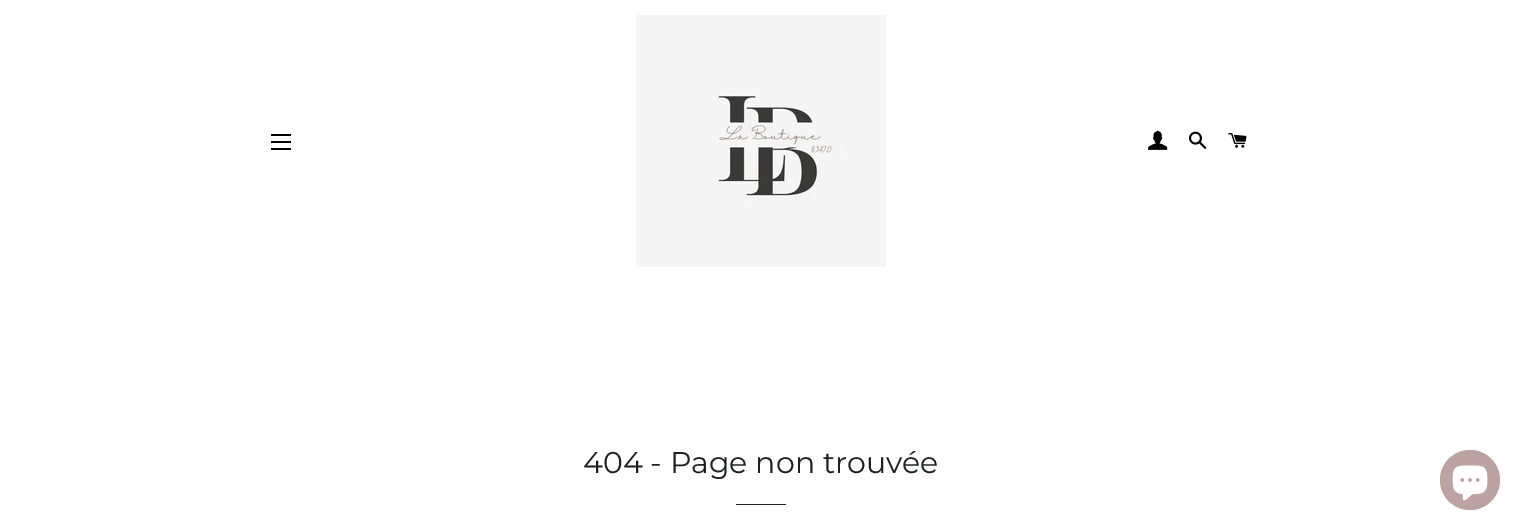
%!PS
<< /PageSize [1522 531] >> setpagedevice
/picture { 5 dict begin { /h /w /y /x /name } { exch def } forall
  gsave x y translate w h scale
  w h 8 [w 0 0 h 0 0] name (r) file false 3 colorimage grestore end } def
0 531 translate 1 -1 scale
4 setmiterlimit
1 setgray
0 0 1522 531 rectfill
0 setgray
271 134 20 2 rectfill
271 141 20 2 rectfill
271 148 20 2 rectfill
(img1.rgb) 636 15 250 252 picture
(img2.rgb) 1148 130 20 20 picture
(img3.rgb) 1189 131 18 18 picture
(img4.rgb) 1228 133 19 15 picture
/Montserrat-Regular [30 0 0 -30 0 0] selectfont
0.122 0.125 0.129 setrgbcolor
583 473 moveto (404 - Page non trouvée) show
736 504 50 1 rectfill
0.741 0.635 0.635 setrgbcolor
newpath 1470 480 30 0 360 arc closepath fill
(img5.rgb) 1452 465 36 36 picture
showpage
